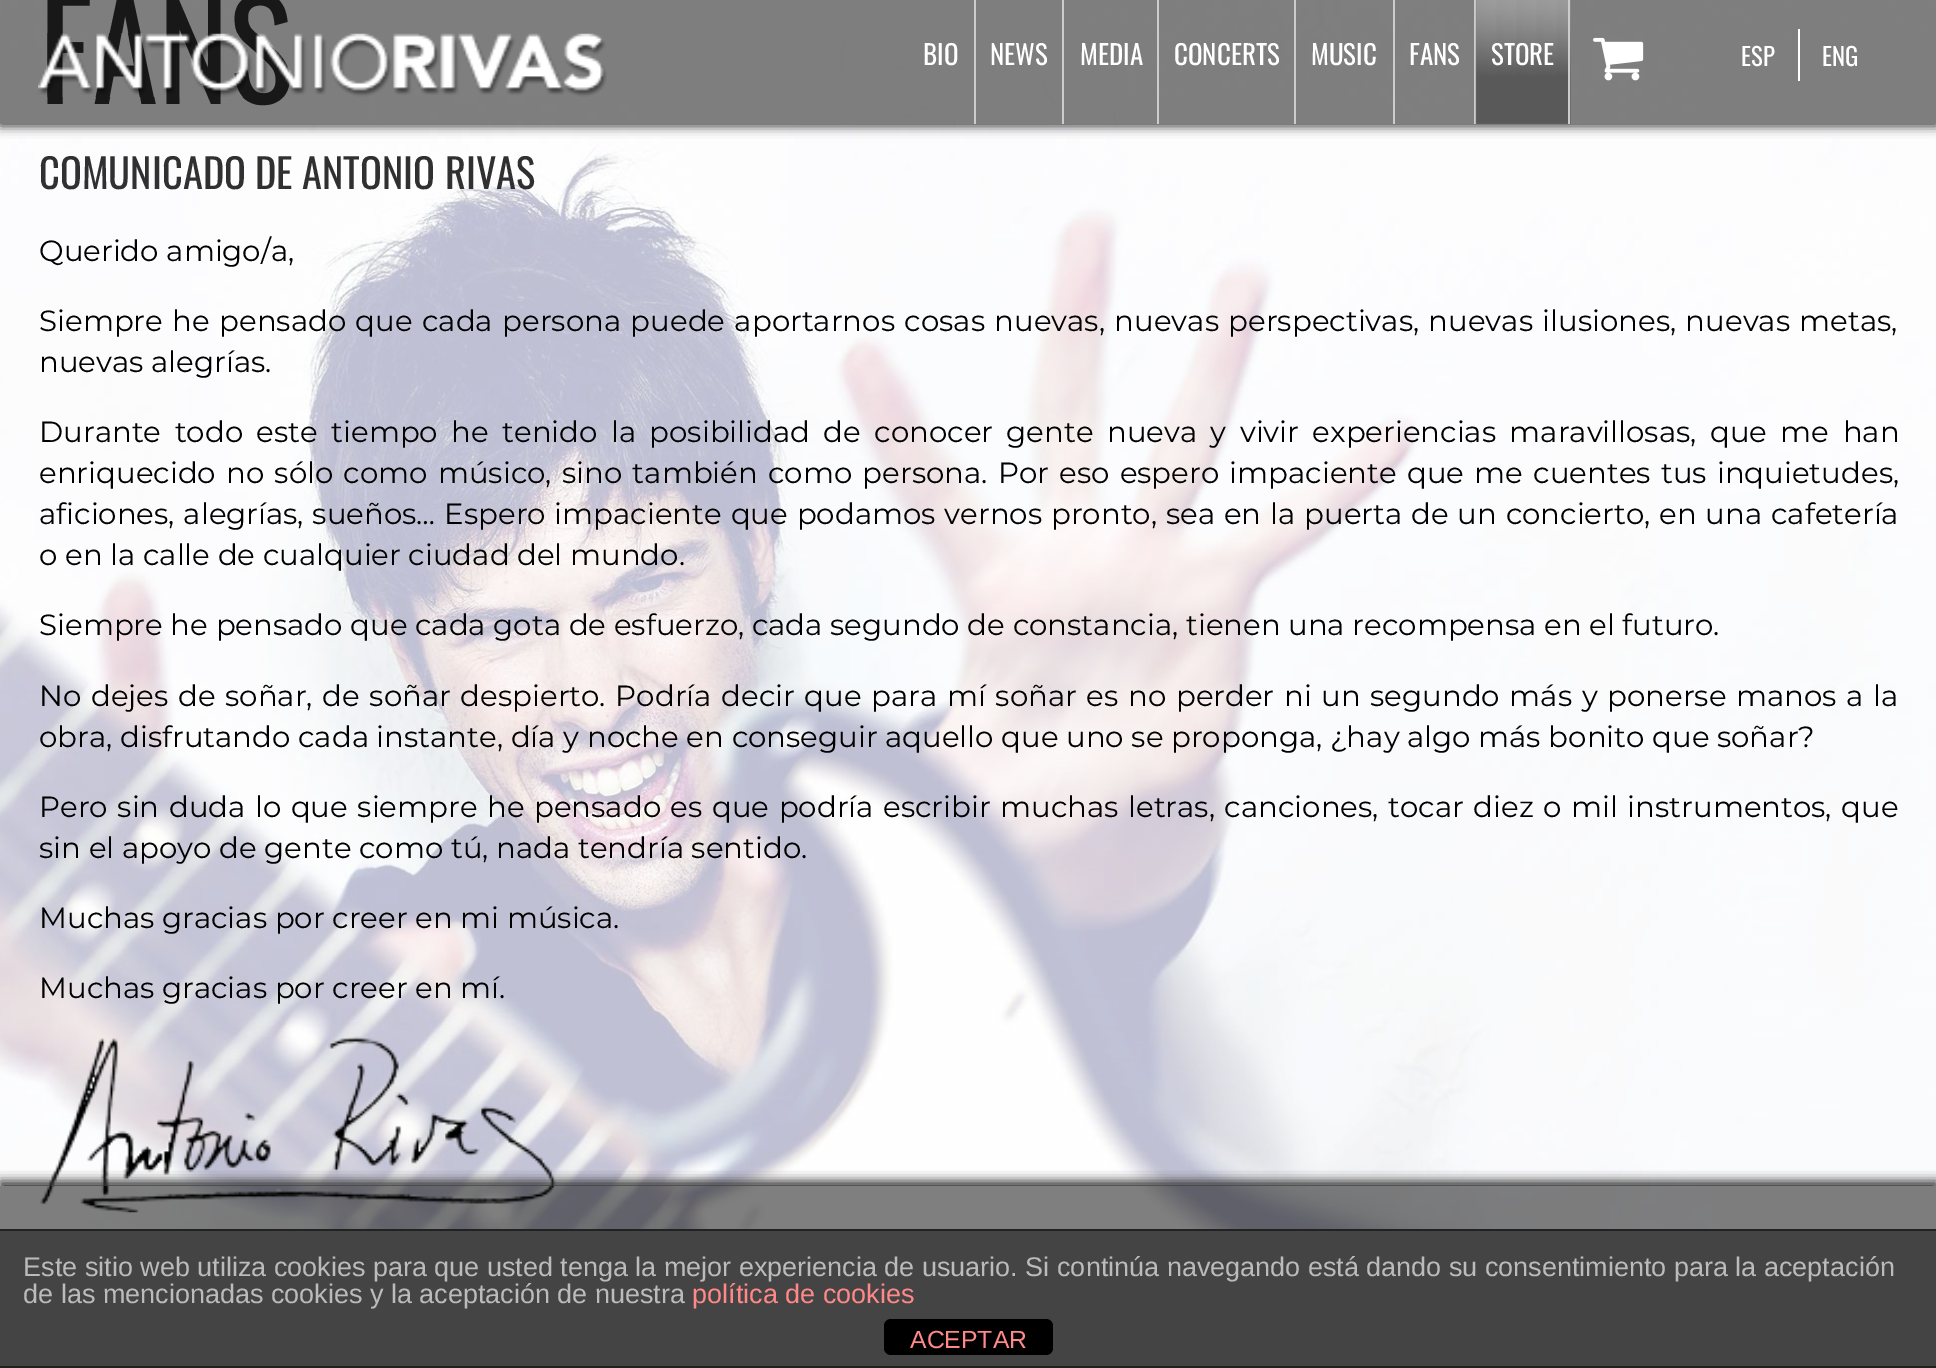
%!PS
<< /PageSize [1936 1368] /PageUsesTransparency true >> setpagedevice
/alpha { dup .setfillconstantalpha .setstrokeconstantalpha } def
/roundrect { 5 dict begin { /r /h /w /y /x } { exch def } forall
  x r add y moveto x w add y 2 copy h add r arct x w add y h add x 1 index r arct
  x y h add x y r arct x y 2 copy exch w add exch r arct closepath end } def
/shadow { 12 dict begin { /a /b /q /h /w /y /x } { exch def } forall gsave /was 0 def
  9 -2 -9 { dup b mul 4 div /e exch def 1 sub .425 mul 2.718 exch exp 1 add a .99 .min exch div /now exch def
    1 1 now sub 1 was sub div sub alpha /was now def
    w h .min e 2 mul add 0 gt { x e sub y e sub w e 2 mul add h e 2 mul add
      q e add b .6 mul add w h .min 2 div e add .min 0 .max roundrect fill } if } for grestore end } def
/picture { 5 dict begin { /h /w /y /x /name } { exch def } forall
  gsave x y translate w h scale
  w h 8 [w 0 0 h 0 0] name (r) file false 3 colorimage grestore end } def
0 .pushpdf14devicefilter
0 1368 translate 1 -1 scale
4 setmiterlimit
1 setgray
0 0 1936 1368 rectfill
(img1.rgb) 0 0 1936 1229 picture
/Oswald-Regular [135 0 0 -135 0 0] selectfont
0.188 setgray
39 104 moveto (FANS) show
/Oswald-Regular [40.5 0 0 -40.5 0 0] selectfont
39 189 moveto (COMUNICADO DE ANTONIO RIVAS) show
/Montserrat-Regular [29.25 0 0 -29.25 0 0] selectfont
0 setgray
39 261 moveto (Querido amigo/a,) show
39 331 moveto 1.75 0 32 (Siempre he pensado que cada persona puede aportarnos cosas nuevas, nuevas perspectivas, nuevas ilusiones, nuevas metas,) widthshow
39 372 moveto (nuevas alegrías.) show
39 442 moveto 5.75 0 32 (Durante todo este tiempo he tenido la posibilidad de conocer gente nueva y vivir experiencias maravillosas, que me han) widthshow
39 483 moveto 2.6 0 32 (enriquecido no sólo como músico, sino también como persona. Por eso espero impaciente que me cuentes tus inquietudes,) widthshow
39 524 moveto 1.2 0 32 (aficiones, alegrías, sueños… Espero impaciente que podamos vernos pronto, sea en la puerta de un concierto, en una cafetería) widthshow
39 565 moveto (o en la calle de cualquier ciudad del mundo.) show
39 635 moveto (Siempre he pensado que cada gota de esfuerzo, cada segundo de constancia, tienen una recompensa en el futuro.) show
39 706 moveto 2 0 32 (No dejes de soñar, de soñar despierto. Podría decir que para mí soñar es no perder ni un segundo más y ponerse manos a la) widthshow
39 747 moveto (obra, disfrutando cada instante, día y noche en conseguir aquello que uno se proponga, ¿hay algo más bonito que soñar?) show
39 817 moveto 1.9 0 32 (Pero sin duda lo que siempre he pensado es que podría escribir muchas letras, canciones, tocar diez o mil instrumentos, que) widthshow
39 858 moveto (sin el apoyo de gente como tú, nada tendría sentido.) show
39 928 moveto (Muchas gracias por creer en mi música.) show
39 998 moveto (Muchas gracias por creer en mí.) show
(img2.rgb) 40 1036 516 177 picture
gsave
newpath 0 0 moveto 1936 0 lineto 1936 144 lineto 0 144 lineto closepath 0 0 moveto 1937 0 lineto 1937 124 lineto 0 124 lineto closepath eoclip newpath
0.2 setgray
0 2 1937 124 0 5.5 1 shadow
grestore
0.5 alpha
0 0 1936 124 rectfill
1 alpha
(img3.rgb) 38 33 569 64 picture
0.8 setgray
974 0 2 124 rectfill
/Oswald-Regular [27 0 0 -27 0 0] selectfont
1 setgray
923 65 moveto (BIO) show
0.8 setgray
1062 0 2 124 rectfill
1 setgray
990 65 moveto (NEWS) show
0.8 setgray
1157 0 2 124 rectfill
1 setgray
1080 65 moveto (MEDIA) show
0.8 setgray
1294 0 2 124 rectfill
1 setgray
1174 65 moveto (CONCERTS) show
0.8 setgray
1393 0 2 124 rectfill
1 setgray
1311 65 moveto (MUSIC) show
0.8 setgray
1474 0 2 124 rectfill
1 setgray
1409 65 moveto (FANS) show
(img4.rgb) 1475 0 96 124 picture
0.8 setgray
1568 0 2 124 rectfill
1 setgray
1491 65 moveto (STORE) show
(img5.rgb) 1593 37 51 44 picture
1798 29 2 52 rectfill
/Oswald-Regular [24.75 0 0 -24.75 0 0] selectfont
1741 66 moveto (ESP) show
1822 66 moveto (ENG) show
gsave
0 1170 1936 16 rectclip
0.2 setgray
0 1181 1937 183 0 5.5 1 shadow
grestore
0.5 alpha
0 setgray
0 1186 1936 43 rectfill
1 alpha
0.267 setgray
0 1231 1936 135 rectfill
0.133 setgray
0 1229 1936 2 rectfill
0 1366 1936 2 rectfill
/LiberationSans-Regular [27 0 0 -27 0 0] selectfont
0.733 setgray
23 1276 moveto (Este sitio web utiliza cookies para que usted tenga la mejor experiencia de usuario. Si continúa navegando está dando su consentimiento para la aceptación) show
23 1303 moveto (de las mencionadas cookies y la aceptación de nuestra) show
1 0.533 0.533 setrgbcolor
692 1303 moveto (política de cookies) show
0 setgray
884 1319 169 36 7 roundrect fill
/LiberationSans-Regular [24.75 0 0 -24.75 0 0] selectfont
1 0.533 0.533 setrgbcolor
910 1348 moveto (ACEPTAR) show
.poppdf14devicefilter showpage
